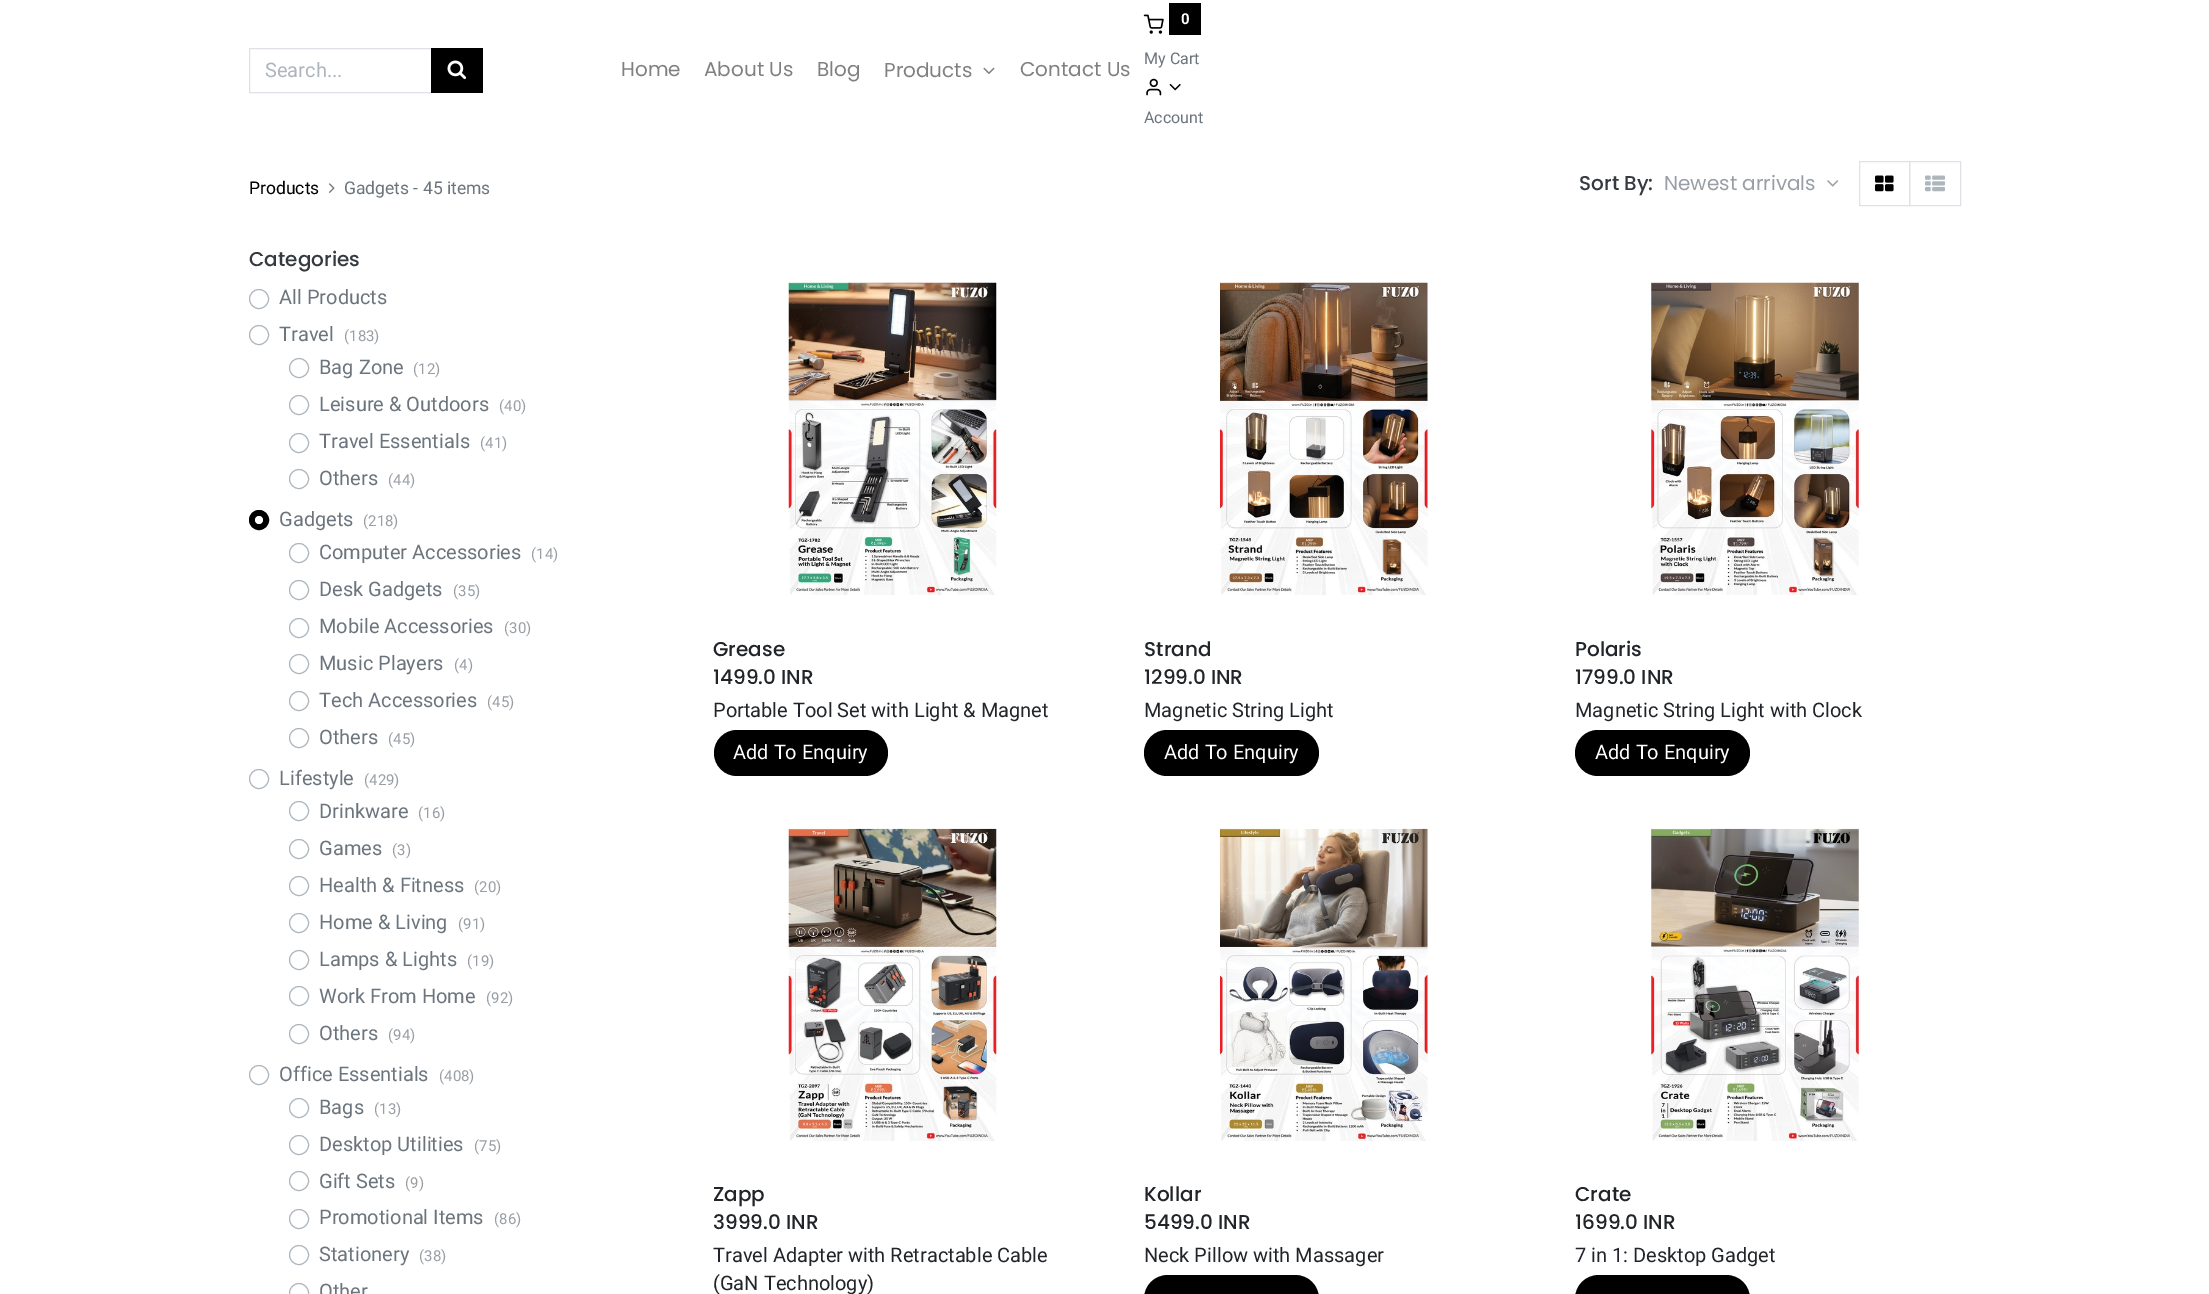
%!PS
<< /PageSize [2209 1294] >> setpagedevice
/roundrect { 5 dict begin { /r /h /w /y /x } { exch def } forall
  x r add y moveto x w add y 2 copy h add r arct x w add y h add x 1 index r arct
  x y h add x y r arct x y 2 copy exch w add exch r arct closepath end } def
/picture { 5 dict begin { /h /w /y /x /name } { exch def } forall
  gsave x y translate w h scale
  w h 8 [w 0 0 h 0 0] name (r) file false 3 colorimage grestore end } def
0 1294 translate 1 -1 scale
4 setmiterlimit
1 setgray
0 0 2209 1294 rectfill
0.871 0.886 0.902 setrgbcolor
249.5 48.5 183 44 rectstroke
/Roboto-Regular [20 0 0 -20 0 0] selectfont
0.678 0.71 0.741 setrgbcolor
265 77 moveto (Search...) show
0 setgray
431 48 52 45 rectfill
(img1.rgb) 447 60 20 20 picture
/Poppins-Regular [20 0 0 -20 0 0] selectfont
0.502 setgray
621 76 moveto (Home) show
704 76 moveto (About Us) show
817 76 moveto (Blog) show
884 77 moveto (Products) show
(img2.rgb) 983 67 12 7 picture
1020 76 moveto (Contact Us) show
(img3.rgb) 1143 14 21 20 picture
0 setgray
1169 3 32 32 rectfill
/Roboto-Bold [15 0 0 -15 0 0] selectfont
1 setgray
1181 24 moveto (0) show
/Roboto-Regular [16 0 0 -16 0 0] selectfont
0.424 0.459 0.49 setrgbcolor
1144 64 moveto (My Cart) show
(img4.rgb) 1146 78 16 18 picture
(img5.rgb) 1169 83 12 8 picture
1144 123 moveto (Account) show
/Roboto-Regular [17.5 0 0 -17.5 0 0] selectfont
0 setgray
249 194 moveto (Products) show
(img6.rgb) 328 183 7 10 picture
0.424 0.459 0.49 setrgbcolor
344 194 moveto (Gadgets - 45 items) show
/Poppins-Medium [20 0 0 -20 0 0] selectfont
0.204 0.227 0.251 setrgbcolor
1579 190 moveto (Sort By:) show
/Poppins-Regular [20 0 0 -20 0 0] selectfont
0.596 0.62 0.643 setrgbcolor
1664 190 moveto (Newest arrivals) show
(img7.rgb) 1827 180 12 7 picture
0.871 0.886 0.902 setrgbcolor
1909.5 161.5 51 44 rectstroke
1859.5 161.5 50 44 rectstroke
(img8.rgb) 1875 175 19 17 picture
(img9.rgb) 1925 175 20 17 picture
/Poppins-Medium [20 0 0 -20 0 0] selectfont
0.204 0.227 0.251 setrgbcolor
249 266 moveto (Categories) show
0.678 0.71 0.741 setrgbcolor
newpath 259 299 9.5 0 360 arc closepath stroke
/Roboto-Regular [20 0 0 -20 0 0] selectfont
0.424 0.459 0.49 setrgbcolor
279 304 moveto (All Products) show
0.678 0.71 0.741 setrgbcolor
newpath 259 335 9.5 0 360 arc closepath stroke
0.424 0.459 0.49 setrgbcolor
279 341 moveto (Travel) show
/Roboto-Regular [15 0 0 -15 0 0] selectfont
0.596 0.62 0.643 setrgbcolor
344 341 moveto (\(183\)) show
0.678 0.71 0.741 setrgbcolor
newpath 299 368 9.5 0 360 arc closepath stroke
/Roboto-Regular [20 0 0 -20 0 0] selectfont
0.424 0.459 0.49 setrgbcolor
319 374 moveto (Bag Zone) show
/Roboto-Regular [15 0 0 -15 0 0] selectfont
0.596 0.62 0.643 setrgbcolor
413 374 moveto (\(12\)) show
0.678 0.71 0.741 setrgbcolor
newpath 299 405 9.5 0 360 arc closepath stroke
/Roboto-Regular [20 0 0 -20 0 0] selectfont
0.424 0.459 0.49 setrgbcolor
319 411 moveto (Leisure & Outdoors) show
/Roboto-Regular [15 0 0 -15 0 0] selectfont
0.596 0.62 0.643 setrgbcolor
499 411 moveto (\(40\)) show
0.678 0.71 0.741 setrgbcolor
newpath 299 443 9.5 0 360 arc closepath stroke
/Roboto-Regular [20 0 0 -20 0 0] selectfont
0.424 0.459 0.49 setrgbcolor
319 448 moveto (Travel Essentials) show
/Roboto-Regular [15 0 0 -15 0 0] selectfont
0.596 0.62 0.643 setrgbcolor
480 448 moveto (\(41\)) show
0.678 0.71 0.741 setrgbcolor
newpath 299 479 9.5 0 360 arc closepath stroke
/Roboto-Regular [20 0 0 -20 0 0] selectfont
0.424 0.459 0.49 setrgbcolor
319 485 moveto (Others) show
/Roboto-Regular [15 0 0 -15 0 0] selectfont
0.596 0.62 0.643 setrgbcolor
388 485 moveto (\(44\)) show
0 setgray
newpath 259 520 9.5 0 360 arc closepath gsave fill grestore
stroke
/Roboto-Regular [20 0 0 -20 0 0] selectfont
0.424 0.459 0.49 setrgbcolor
279 526 moveto (Gadgets) show
/Roboto-Regular [15 0 0 -15 0 0] selectfont
0.596 0.62 0.643 setrgbcolor
363 526 moveto (\(218\)) show
1 setgray
newpath 259 520 4 0 360 arc closepath fill
0.678 0.71 0.741 setrgbcolor
newpath 299 553 9.5 0 360 arc closepath stroke
/Roboto-Regular [20 0 0 -20 0 0] selectfont
0.424 0.459 0.49 setrgbcolor
319 559 moveto (Computer Accessories) show
/Roboto-Regular [15 0 0 -15 0 0] selectfont
0.596 0.62 0.643 setrgbcolor
531 559 moveto (\(14\)) show
0.678 0.71 0.741 setrgbcolor
newpath 299 590 9.5 0 360 arc closepath stroke
/Roboto-Regular [20 0 0 -20 0 0] selectfont
0.424 0.459 0.49 setrgbcolor
319 596 moveto (Desk Gadgets) show
/Roboto-Regular [15 0 0 -15 0 0] selectfont
0.596 0.62 0.643 setrgbcolor
453 596 moveto (\(35\)) show
0.678 0.71 0.741 setrgbcolor
newpath 299 628 9.5 0 360 arc closepath stroke
/Roboto-Regular [20 0 0 -20 0 0] selectfont
0.424 0.459 0.49 setrgbcolor
319 633 moveto (Mobile Accessories) show
/Roboto-Regular [15 0 0 -15 0 0] selectfont
0.596 0.62 0.643 setrgbcolor
504 633 moveto (\(30\)) show
0.678 0.71 0.741 setrgbcolor
newpath 299 664 9.5 0 360 arc closepath stroke
/Roboto-Regular [20 0 0 -20 0 0] selectfont
0.424 0.459 0.49 setrgbcolor
319 670 moveto (Music Players) show
/Roboto-Regular [15 0 0 -15 0 0] selectfont
0.596 0.62 0.643 setrgbcolor
454 670 moveto (\(4\)) show
0.678 0.71 0.741 setrgbcolor
newpath 299 701 9.5 0 360 arc closepath stroke
/Roboto-Regular [20 0 0 -20 0 0] selectfont
0.424 0.459 0.49 setrgbcolor
319 707 moveto (Tech Accessories) show
/Roboto-Regular [15 0 0 -15 0 0] selectfont
0.596 0.62 0.643 setrgbcolor
487 707 moveto (\(45\)) show
0.678 0.71 0.741 setrgbcolor
newpath 299 738 9.5 0 360 arc closepath stroke
/Roboto-Regular [20 0 0 -20 0 0] selectfont
0.424 0.459 0.49 setrgbcolor
319 744 moveto (Others) show
/Roboto-Regular [15 0 0 -15 0 0] selectfont
0.596 0.62 0.643 setrgbcolor
388 744 moveto (\(45\)) show
0.678 0.71 0.741 setrgbcolor
newpath 259 779 9.5 0 360 arc closepath stroke
/Roboto-Regular [20 0 0 -20 0 0] selectfont
0.424 0.459 0.49 setrgbcolor
279 785 moveto (Lifestyle) show
/Roboto-Regular [15 0 0 -15 0 0] selectfont
0.596 0.62 0.643 setrgbcolor
364 785 moveto (\(429\)) show
0.678 0.71 0.741 setrgbcolor
newpath 299 811 9.5 0 360 arc closepath stroke
/Roboto-Regular [20 0 0 -20 0 0] selectfont
0.424 0.459 0.49 setrgbcolor
319 818 moveto (Drinkware) show
/Roboto-Regular [15 0 0 -15 0 0] selectfont
0.596 0.62 0.643 setrgbcolor
418 818 moveto (\(16\)) show
0.678 0.71 0.741 setrgbcolor
newpath 299 849 9.5 0 360 arc closepath stroke
/Roboto-Regular [20 0 0 -20 0 0] selectfont
0.424 0.459 0.49 setrgbcolor
319 855 moveto (Games) show
/Roboto-Regular [15 0 0 -15 0 0] selectfont
0.596 0.62 0.643 setrgbcolor
392 855 moveto (\(3\)) show
0.678 0.71 0.741 setrgbcolor
newpath 299 886 9.5 0 360 arc closepath stroke
/Roboto-Regular [20 0 0 -20 0 0] selectfont
0.424 0.459 0.49 setrgbcolor
319 892 moveto (Health & Fitness) show
/Roboto-Regular [15 0 0 -15 0 0] selectfont
0.596 0.62 0.643 setrgbcolor
474 892 moveto (\(20\)) show
0.678 0.71 0.741 setrgbcolor
newpath 299 923 9.5 0 360 arc closepath stroke
/Roboto-Regular [20 0 0 -20 0 0] selectfont
0.424 0.459 0.49 setrgbcolor
319 929 moveto (Home & Living) show
/Roboto-Regular [15 0 0 -15 0 0] selectfont
0.596 0.62 0.643 setrgbcolor
458 929 moveto (\(91\)) show
0.678 0.71 0.741 setrgbcolor
newpath 299 960 9.5 0 360 arc closepath stroke
/Roboto-Regular [20 0 0 -20 0 0] selectfont
0.424 0.459 0.49 setrgbcolor
319 966 moveto (Lamps & Lights) show
/Roboto-Regular [15 0 0 -15 0 0] selectfont
0.596 0.62 0.643 setrgbcolor
467 966 moveto (\(19\)) show
0.678 0.71 0.741 setrgbcolor
newpath 299 996 9.5 0 360 arc closepath stroke
/Roboto-Regular [20 0 0 -20 0 0] selectfont
0.424 0.459 0.49 setrgbcolor
319 1003 moveto (Work From Home) show
/Roboto-Regular [15 0 0 -15 0 0] selectfont
0.596 0.62 0.643 setrgbcolor
486 1003 moveto (\(92\)) show
0.678 0.71 0.741 setrgbcolor
newpath 299 1034 9.5 0 360 arc closepath stroke
/Roboto-Regular [20 0 0 -20 0 0] selectfont
0.424 0.459 0.49 setrgbcolor
319 1040 moveto (Others) show
/Roboto-Regular [15 0 0 -15 0 0] selectfont
0.596 0.62 0.643 setrgbcolor
388 1040 moveto (\(94\)) show
0.678 0.71 0.741 setrgbcolor
newpath 259 1075 9.5 0 360 arc closepath stroke
/Roboto-Regular [20 0 0 -20 0 0] selectfont
0.424 0.459 0.49 setrgbcolor
279 1081 moveto (Office Essentials) show
/Roboto-Regular [15 0 0 -15 0 0] selectfont
0.596 0.62 0.643 setrgbcolor
439 1081 moveto (\(408\)) show
0.678 0.71 0.741 setrgbcolor
newpath 299 1108 9.5 0 360 arc closepath stroke
/Roboto-Regular [20 0 0 -20 0 0] selectfont
0.424 0.459 0.49 setrgbcolor
319 1114 moveto (Bags) show
/Roboto-Regular [15 0 0 -15 0 0] selectfont
0.596 0.62 0.643 setrgbcolor
374 1114 moveto (\(13\)) show
0.678 0.71 0.741 setrgbcolor
newpath 299 1145 9.5 0 360 arc closepath stroke
/Roboto-Regular [20 0 0 -20 0 0] selectfont
0.424 0.459 0.49 setrgbcolor
319 1151 moveto (Desktop Utilities) show
/Roboto-Regular [15 0 0 -15 0 0] selectfont
0.596 0.62 0.643 setrgbcolor
474 1151 moveto (\(75\)) show
0.678 0.71 0.741 setrgbcolor
newpath 299 1181 9.5 0 360 arc closepath stroke
/Roboto-Regular [20 0 0 -20 0 0] selectfont
0.424 0.459 0.49 setrgbcolor
319 1188 moveto (Gift Sets) show
/Roboto-Regular [15 0 0 -15 0 0] selectfont
0.596 0.62 0.643 setrgbcolor
405 1188 moveto (\(9\)) show
0.678 0.71 0.741 setrgbcolor
newpath 299 1219 9.5 0 360 arc closepath stroke
/Roboto-Regular [20 0 0 -20 0 0] selectfont
0.424 0.459 0.49 setrgbcolor
319 1224 moveto (Promotional Items) show
/Roboto-Regular [15 0 0 -15 0 0] selectfont
0.596 0.62 0.643 setrgbcolor
494 1224 moveto (\(86\)) show
0.678 0.71 0.741 setrgbcolor
newpath 299 1255 9.5 0 360 arc closepath stroke
/Roboto-Regular [20 0 0 -20 0 0] selectfont
0.424 0.459 0.49 setrgbcolor
319 1261 moveto (Stationery) show
/Roboto-Regular [15 0 0 -15 0 0] selectfont
0.596 0.62 0.643 setrgbcolor
419 1261 moveto (\(38\)) show
0.678 0.71 0.741 setrgbcolor
newpath 299 1293 9.5 0 360 arc closepath stroke
/Roboto-Regular [20 0 0 -20 0 0] selectfont
0.424 0.459 0.49 setrgbcolor
319 1298 moveto (Other) show
(img10.rgb) 788 282 209 313 picture
/Poppins-Medium [20 0 0 -20 0 0] selectfont
0.129 0.145 0.161 setrgbcolor
713 656 moveto (Grease) show
713 684 moveto (1499.0 INR) show
/Roboto-Regular [20 0 0 -20 0 0] selectfont
713 717 moveto (Portable Tool Set with Light & Magnet) show
0 setgray
714 730 174 46 23 roundrect fill
1 setgray
733 759 moveto (Add To Enquiry) show
(img11.rgb) 1220 282 208 313 picture
/Poppins-Medium [20 0 0 -20 0 0] selectfont
0.129 0.145 0.161 setrgbcolor
1144 656 moveto (Strand) show
1144 684 moveto (1299.0 INR) show
/Roboto-Regular [20 0 0 -20 0 0] selectfont
1144 717 moveto (Magnetic String Light) show
0 setgray
1144 730 175 46 23 roundrect fill
1 setgray
1164 759 moveto (Add To Enquiry) show
(img12.rgb) 1651 282 208 313 picture
/Poppins-Medium [20 0 0 -20 0 0] selectfont
0.129 0.145 0.161 setrgbcolor
1575 656 moveto (Polaris) show
1575 684 moveto (1799.0 INR) show
/Roboto-Regular [20 0 0 -20 0 0] selectfont
1575 717 moveto (Magnetic String Light with Clock) show
0 setgray
1575 730 175 46 23 roundrect fill
1 setgray
1595 759 moveto (Add To Enquiry) show
(img13.rgb) 788 828 209 313 picture
/Poppins-Medium [20 0 0 -20 0 0] selectfont
0.129 0.145 0.161 setrgbcolor
713 1201 moveto (Zapp) show
713 1229 moveto (3999.0 INR) show
/Roboto-Regular [20 0 0 -20 0 0] selectfont
713 1262 moveto (Travel Adapter with Retractable Cable) show
713 1290 moveto (\(GaN Technology\)) show
(img14.rgb) 1220 828 208 313 picture
/Poppins-Medium [20 0 0 -20 0 0] selectfont
1144 1201 moveto (Kollar) show
1144 1229 moveto (5499.0 INR) show
/Roboto-Regular [20 0 0 -20 0 0] selectfont
1144 1262 moveto (Neck Pillow with Massager) show
0 setgray
newpath 1168 1275 moveto 1295 1275 lineto 1308.5 1275 1319 1285.5 1319 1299 curveto 1319 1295 lineto 1144 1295 lineto 1144 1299 lineto 1144 1285.5 1154.5 1275 1168 1275 curveto closepath fill
(img15.rgb) 1651 828 208 313 picture
/Poppins-Medium [20 0 0 -20 0 0] selectfont
0.129 0.145 0.161 setrgbcolor
1575 1201 moveto (Crate) show
1575 1229 moveto (1699.0 INR) show
/Roboto-Regular [20 0 0 -20 0 0] selectfont
1575 1262 moveto (7 in 1: Desktop Gadget) show
0 setgray
newpath 1599 1275 moveto 1726 1275 lineto 1739.5 1275 1750 1285.5 1750 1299 curveto 1750 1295 lineto 1575 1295 lineto 1575 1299 lineto 1575 1285.5 1585.5 1275 1599 1275 curveto closepath fill
showpage
